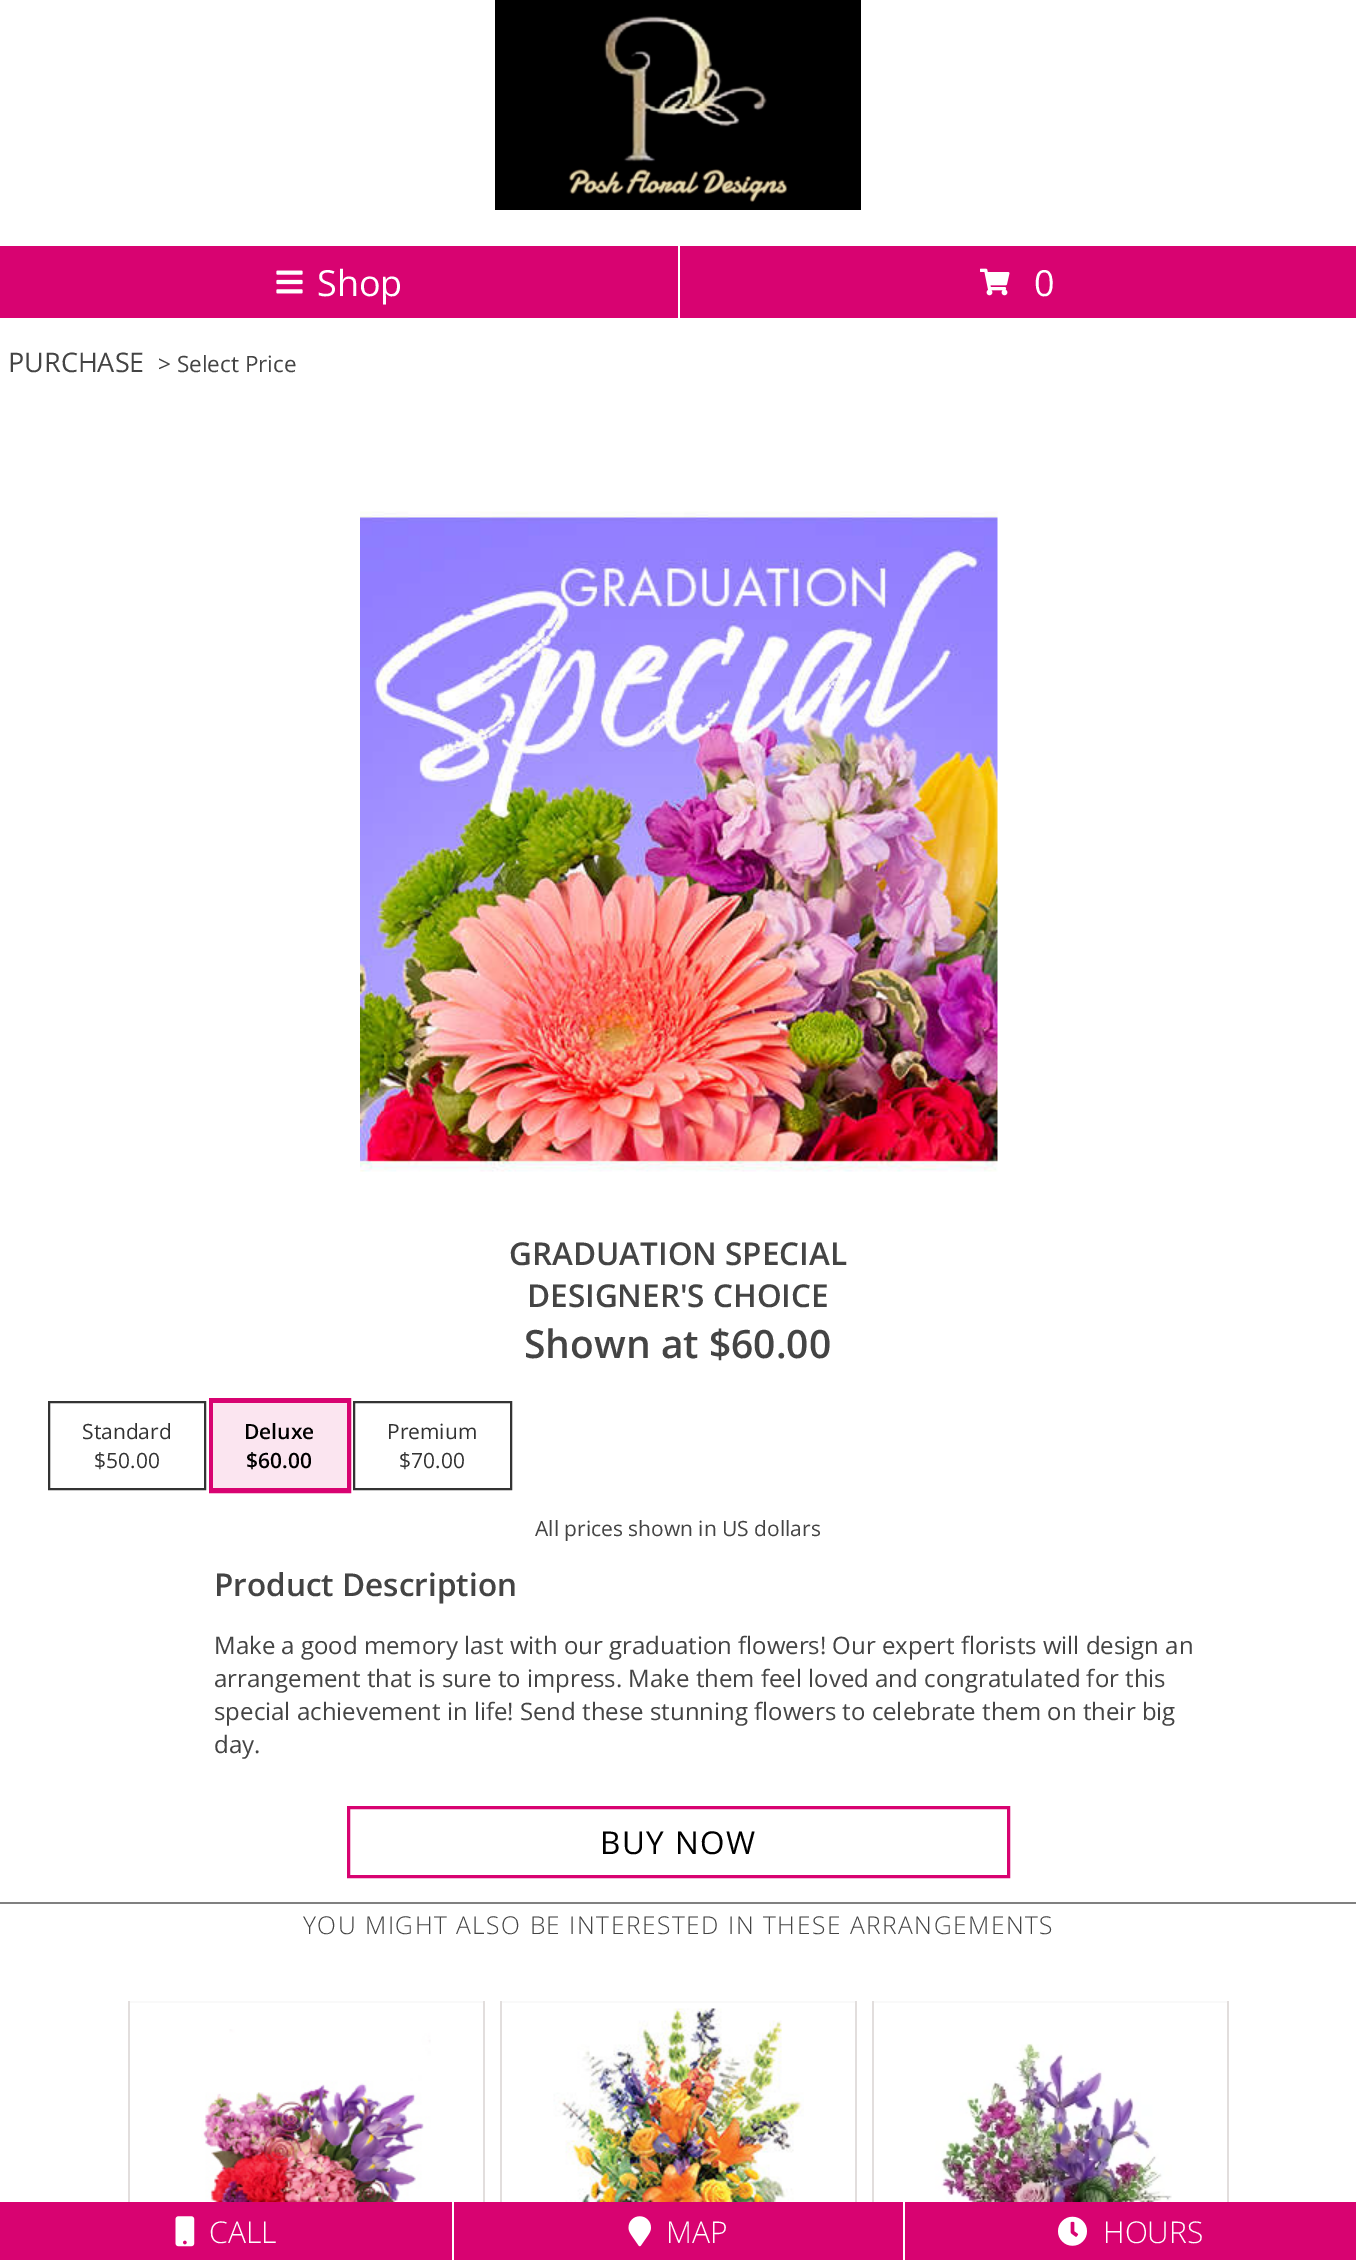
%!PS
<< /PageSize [1356 2260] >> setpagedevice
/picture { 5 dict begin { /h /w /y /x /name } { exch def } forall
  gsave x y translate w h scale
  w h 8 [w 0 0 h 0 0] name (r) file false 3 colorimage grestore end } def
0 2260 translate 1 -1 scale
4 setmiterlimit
1 setgray
0 0 1356 2260 rectfill
(img1.rgb) 495 0 366 210 picture
0.847 0.012 0.443 setrgbcolor
0 246 678 72 rectfill
(img2.rgb) 276 270 27 24 picture
/OpenSans-Regular [36 0 0 -36 0 0] selectfont
1 setgray
317 296 moveto (Shop) show
0.847 0.012 0.443 setrgbcolor
680 246 676 72 rectfill
(img3.rgb) 980 268 30 28 picture
1 setgray
1034 296 moveto (0) show
/OpenSans-Regular [27 0 0 -27 0 0] selectfont
0.267 setgray
8 372 moveto (PURCHASE) show
/OpenSans-Regular [22.5 0 0 -22.5 0 0] selectfont
158 372 moveto (> Select Price) show
(img4.rgb) 360 511 638 661 picture
/OpenSans-SemiBold [31.5 0 0 -31.5 0 0] selectfont
509 1265 moveto (GRADUATION SPECIAL) show
527 1307 moveto (DESIGNER'S CHOICE) show
/OpenSans-SemiBold [39 0 0 -39 0 0] selectfont
524 1358 moveto (Shown at $60.00) show
0.2 setgray
2 setlinewidth
49 1402 156 87 rectstroke
/OpenSans-Regular [21 0 0 -21 0 0] selectfont
82 1439 moveto (Standard) show
94 1468 moveto ($50.00) show
0.847 0.012 0.443 setrgbcolor
5 setlinewidth
211.5 1400.5 137 90 rectstroke
0.984 0.898 0.941 setrgbcolor
213 1403 134 85 rectfill
/OpenSans-SemiBold [21 0 0 -21 0 0] selectfont
0 setgray
244 1439 moveto (Deluxe) show
246 1468 moveto ($60.00) show
0.2 setgray
2 setlinewidth
354 1402 157 87 rectstroke
/OpenSans-Regular [21 0 0 -21 0 0] selectfont
387 1439 moveto (Premium) show
399 1468 moveto ($70.00) show
0.267 setgray
535 1536 moveto (All prices shown in US dollars) show
/OpenSans-SemiBold [31.5 0 0 -31.5 0 0] selectfont
214 1596 moveto (Product Description) show
/OpenSans-Regular [24 0 0 -24 0 0] selectfont
214 1654 moveto (Make a good memory last with our graduation flowers! Our expert florists will design an) show
214 1687 moveto (arrangement that is sure to impress. Make them feel loved and congratulated for this) show
214 1720 moveto (special achievement in life! Send these stunning flowers to celebrate them on their big) show
214 1753 moveto (day.) show
0.847 0.012 0.443 setrgbcolor
3 setlinewidth
348.5 1807.5 660 69 rectstroke
/OpenSans-Regular [31.5 0 0 -31.5 0 0] selectfont
0 setgray
600 1854 moveto 1.5 0 (BUY NOW) ashow
0.502 setgray
0 1902 1356 2 rectfill
/OpenSans-Light [24.6 0 0 -24.6 0 0] selectfont
0.267 setgray
303 1934 moveto 1.5 0 (YOU MIGHT ALSO BE INTERESTED IN THESE ARRANGEMENTS) ashow
0.976 setgray
128 2001 357 2 rectfill
0.886 0.871 0.867 setrgbcolor
483 2001 2 201 rectfill
128 2001 2 201 rectfill
(img5.rgb) 201 2029 230 173 picture
0.976 setgray
500 2001 357 2 rectfill
0.886 0.871 0.867 setrgbcolor
855 2001 2 201 rectfill
500 2001 2 201 rectfill
(img6.rgb) 553 2008 251 194 picture
0.976 setgray
872 2001 357 2 rectfill
0.886 0.871 0.867 setrgbcolor
1227 2001 2 201 rectfill
872 2001 2 201 rectfill
(img7.rgb) 927 2043 245 159 picture
0.847 0.012 0.443 setrgbcolor
0 2202 452 58 rectfill
(img8.rgb) 175 2216 20 31 picture
/OpenSans-Light [30 0 0 -30 0 0] selectfont
1 setgray
209 2243 moveto (CALL) show
0.847 0.012 0.443 setrgbcolor
454 2202 449 58 rectfill
(img9.rgb) 628 2216 23 31 picture
1 setgray
666 2243 moveto (MAP) show
0.847 0.012 0.443 setrgbcolor
905 2202 451 58 rectfill
(img10.rgb) 1058 2216 29 30 picture
1 setgray
1103 2243 moveto (HOURS) show
showpage
